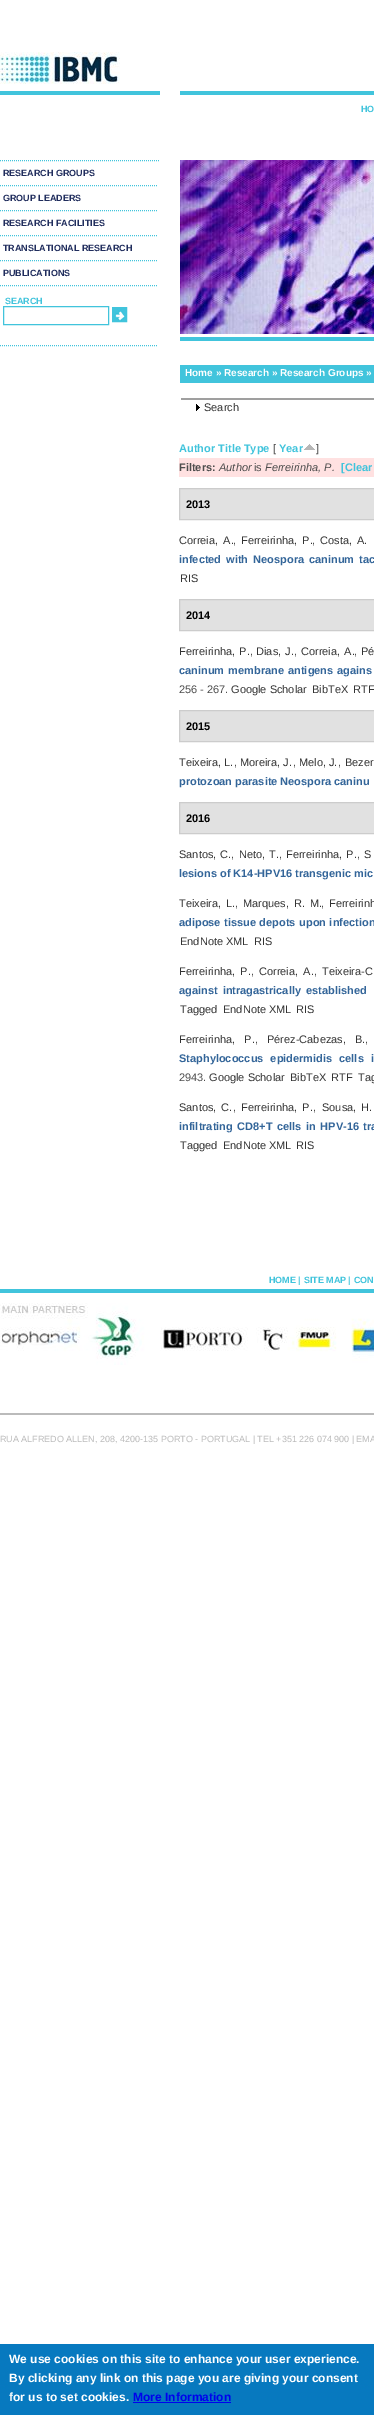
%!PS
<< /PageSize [374 2415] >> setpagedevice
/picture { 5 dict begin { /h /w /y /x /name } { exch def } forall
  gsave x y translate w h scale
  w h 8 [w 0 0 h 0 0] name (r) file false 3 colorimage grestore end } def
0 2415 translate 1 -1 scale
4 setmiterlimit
1 setgray
0 0 374 2415 rectfill
0.255 0.769 0.863 setrgbcolor
0 91 160 4 rectfill
(img1.rgb) 0 52 120 32 picture
180 91 194 4 rectfill
/LiberationSans-Bold [9 0 0 -9 0 0] selectfont
361 112 moveto (HO) show
0.125 0.176 0.365 setrgbcolor
3 176 moveto (RESEARCH GROUPS) show
0.255 0.769 0.863 setrgbcolor
[1 1] 0 setdash
newpath 0 185.5 moveto 158 185.5 lineto stroke
0.125 0.176 0.365 setrgbcolor
3 201 moveto (GROUP LEADERS) show
0.255 0.769 0.863 setrgbcolor
newpath 0 210.5 moveto 158 210.5 lineto stroke
0.125 0.176 0.365 setrgbcolor
3 226 moveto (RESEARCH FACILITIES) show
0.255 0.769 0.863 setrgbcolor
newpath 0 235.5 moveto 158 235.5 lineto stroke
0.125 0.176 0.365 setrgbcolor
3 251 moveto (TRANSLATIONAL RESEARCH) show
0.255 0.769 0.863 setrgbcolor
newpath 0 260.5 moveto 158 260.5 lineto stroke
0.125 0.176 0.365 setrgbcolor
3 276 moveto (PUBLICATIONS) show
0.255 0.769 0.863 setrgbcolor
newpath 0 160.5 moveto 160 160.5 lineto stroke
newpath 0 285.5 moveto 158 285.5 lineto stroke
newpath 0 345.5 moveto 158 345.5 lineto stroke
5 304 moveto (SEARCH) show
[] 0 setdash
3.5 306.5 105 18 rectstroke
(img2.rgb) 113 308 13 13 picture
112.5 307.5 14 14 rectstroke
180 337 194 4 rectfill
(img3.rgb) 180 160 194 174 picture
180 365 194 18 rectfill
/LiberationSans-Bold [10 0 0 -10 0 0] selectfont
1 setgray
185 376 moveto (Home » Research » Research Groups ») show
0.624 setgray
181 398 193 2 rectfill
(img4.rgb) 196 404 4 7 picture
/LiberationSans-Regular [11 0 0 -11 0 0] selectfont
0.2 setgray
204 411 moveto (Search) show
/LiberationSans-Bold [11 0 0 -11 0 0] selectfont
0.255 0.769 0.863 setrgbcolor
179 452 moveto (Author Title Type) show
/LiberationSans-Regular [11 0 0 -11 0 0] selectfont
0.302 setgray
273 452 moveto ([) show
/LiberationSans-Bold [11 0 0 -11 0 0] selectfont
0.255 0.769 0.863 setrgbcolor
279 452 moveto (Year) show
(img5.rgb) 304 444 11 6 picture
/LiberationSans-Regular [11 0 0 -11 0 0] selectfont
0.302 setgray
316 452 moveto (]) show
1 0.882 0.882 setrgbcolor
179 458 195 19 rectfill
/LiberationSans-Bold [11 0 0 -11 0 0] selectfont
0.302 setgray
179 471 moveto (Filters:) show
/LiberationSans-Italic [11 0 0 -11 0 0] selectfont
219 471 moveto (Author) show
/LiberationSans-Regular [11 0 0 -11 0 0] selectfont
254 471 moveto (is) show
/LiberationSans-Italic [11 0 0 -11 0 0] selectfont
265 471 moveto (Ferreirinha, P.) show
/LiberationSans-Bold [11 0 0 -11 0 0] selectfont
0.255 0.769 0.863 setrgbcolor
341 471 moveto ([Clear) show
0.882 setgray
newpath 179.5 488.5 moveto 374.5 488.5 lineto 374.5 519.5 lineto 179.5 519.5 lineto closepath gsave fill grestore
0.8 setgray
stroke
0 setgray
186 508 moveto (2013) show
/LiberationSans-Regular [11 0 0 -11 0 0] selectfont
0.2 setgray
179 544 moveto 2 0 32 (Correia, A.) widthshow
0.302 setgray
233 544 moveto (,) show
0.2 setgray
241 544 moveto 2 0 32 (Ferreirinha, P.) widthshow
0.302 setgray
312 544 moveto (,) show
0.2 setgray
320 544 moveto 2 0 32 (Costa, A.) widthshow
/LiberationSans-Bold [11 0 0 -11 0 0] selectfont
0.2 0.396 0.6 setrgbcolor
179 563 moveto 2 0 32 (infected with Neospora caninum tac) widthshow
/LiberationSans-Regular [11 0 0 -11 0 0] selectfont
0.2 setgray
180 582 moveto (RIS) show
0.882 setgray
newpath 179.5 599.5 moveto 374.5 599.5 lineto 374.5 630.5 lineto 179.5 630.5 lineto closepath gsave fill grestore
0.8 setgray
stroke
/LiberationSans-Bold [11 0 0 -11 0 0] selectfont
0 setgray
186 619 moveto (2014) show
/LiberationSans-Regular [11 0 0 -11 0 0] selectfont
0.2 setgray
179 655 moveto 1 0 32 (Ferreirinha, P.) widthshow
0.302 setgray
250 655 moveto (,) show
0.2 setgray
256 655 moveto 1 0 32 (Dias, J.) widthshow
0.302 setgray
294 655 moveto (,) show
0.2 setgray
301 655 moveto 1 0 32 (Correia, A.) widthshow
0.302 setgray
354 655 moveto (,) show
0.2 setgray
361 655 moveto 1 0 32 (Pé) widthshow
/LiberationSans-Bold [11 0 0 -11 0 0] selectfont
0.2 0.396 0.6 setrgbcolor
179 674 moveto 1 0 32 (caninum membrane antigens agains) widthshow
/LiberationSans-Regular [11 0 0 -11 0 0] selectfont
0.302 setgray
179 693 moveto (256 - 267.) show
0.2 setgray
231 693 moveto (Google Scholar) show
312 693 moveto (BibTeX) show
353 693 moveto (RTF) show
0.882 setgray
newpath 179.5 710.5 moveto 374.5 710.5 lineto 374.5 741.5 lineto 179.5 741.5 lineto closepath gsave fill grestore
0.8 setgray
stroke
/LiberationSans-Bold [11 0 0 -11 0 0] selectfont
0 setgray
186 730 moveto (2015) show
/LiberationSans-Regular [11 0 0 -11 0 0] selectfont
0.2 setgray
179 766 moveto (Teixeira, L.) show
0.302 setgray
234 766 moveto (,) show
0.2 setgray
240 766 moveto (Moreira, J.) show
0.302 setgray
293 766 moveto (,) show
0.2 setgray
299 766 moveto (Melo, J.) show
0.302 setgray
338 766 moveto (,) show
0.2 setgray
345 766 moveto (Bezer) show
/LiberationSans-Bold [11 0 0 -11 0 0] selectfont
0.2 0.396 0.6 setrgbcolor
179 785 moveto (protozoan parasite Neospora caninu) show
0.882 setgray
newpath 179.5 802.5 moveto 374.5 802.5 lineto 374.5 833.5 lineto 179.5 833.5 lineto closepath gsave fill grestore
0.8 setgray
stroke
0 setgray
186 822 moveto (2016) show
/LiberationSans-Regular [11 0 0 -11 0 0] selectfont
0.2 setgray
179 858 moveto 1 0 32 (Santos, C.) widthshow
0.302 setgray
231 858 moveto (,) show
0.2 setgray
239 858 moveto 1 0 32 (Neto, T.) widthshow
0.302 setgray
279 858 moveto (,) show
0.2 setgray
286 858 moveto 1 0 32 (Ferreirinha, P.) widthshow
0.302 setgray
357 858 moveto (,) show
0.2 setgray
364 858 moveto 1 0 32 (S) widthshow
/LiberationSans-Bold [11 0 0 -11 0 0] selectfont
0.2 0.396 0.6 setrgbcolor
179 877 moveto (lesions of K14-HPV16 transgenic mic) show
/LiberationSans-Regular [11 0 0 -11 0 0] selectfont
0.2 setgray
179 907 moveto 2 0 32 (Teixeira, L.) widthshow
0.302 setgray
235 907 moveto (,) show
0.2 setgray
243 907 moveto 2 0 32 (Marques, R. M.) widthshow
0.302 setgray
321 907 moveto (,) show
0.2 setgray
329 907 moveto 2 0 32 (Ferreirinh) widthshow
/LiberationSans-Bold [11 0 0 -11 0 0] selectfont
0.2 0.396 0.6 setrgbcolor
179 926 moveto 0.5 0 32 (adipose tissue depots upon infection) widthshow
/LiberationSans-Regular [11 0 0 -11 0 0] selectfont
0.2 setgray
180 945 moveto (EndNote XML) show
254 945 moveto (RIS) show
179 975 moveto 2 0 32 (Ferreirinha, P.) widthshow
0.302 setgray
251 975 moveto (,) show
0.2 setgray
259 975 moveto 2 0 32 (Correia, A.) widthshow
0.302 setgray
314 975 moveto (,) show
0.2 setgray
322 975 moveto 2 0 32 (Teixeira-C) widthshow
/LiberationSans-Bold [11 0 0 -11 0 0] selectfont
0.2 0.396 0.6 setrgbcolor
179 994 moveto 2 0 32 (against intragastrically established) widthshow
/LiberationSans-Regular [11 0 0 -11 0 0] selectfont
0.2 setgray
180 1013 moveto (Tagged) show
223 1013 moveto (EndNote XML) show
296 1013 moveto (RIS) show
179 1043 moveto 6 0 32 (Ferreirinha, P.) widthshow
0.302 setgray
255 1043 moveto (,) show
0.2 setgray
267 1043 moveto 6 0 32 (Pérez-Cabezas, B.) widthshow
0.302 setgray
365 1043 moveto (,) show
/LiberationSans-Bold [11 0 0 -11 0 0] selectfont
0.2 0.396 0.6 setrgbcolor
179 1062 moveto 4 0 32 (Staphylococcus epidermidis cells i) widthshow
/LiberationSans-Regular [11 0 0 -11 0 0] selectfont
0.302 setgray
179 1081 moveto (2943.) show
0.2 setgray
209 1081 moveto (Google Scholar) show
290 1081 moveto (BibTeX) show
331 1081 moveto (RTF) show
358 1081 moveto (Tag) show
179 1111 moveto 2 0 32 (Santos, C.) widthshow
0.302 setgray
233 1111 moveto (,) show
0.2 setgray
241 1111 moveto 2 0 32 (Ferreirinha, P.) widthshow
0.302 setgray
313 1111 moveto (,) show
0.2 setgray
322 1111 moveto 2 0 32 (Sousa, H.) widthshow
/LiberationSans-Bold [11 0 0 -11 0 0] selectfont
0.2 0.396 0.6 setrgbcolor
179 1130 moveto 1.5 0 32 (infiltrating CD8+T cells in HPV-16 tra) widthshow
/LiberationSans-Regular [11 0 0 -11 0 0] selectfont
0.2 setgray
180 1149 moveto (Tagged) show
223 1149 moveto (EndNote XML) show
296 1149 moveto (RIS) show
/LiberationSans-Bold [9 0 0 -9 0 0] selectfont
0.255 0.769 0.863 setrgbcolor
269 1283 moveto (HOME | SITE MAP | CON) show
0 1289 374 4 rectfill
(img6.rgb) 0 1303 374 62 picture
0.733 setgray
0 1413 374 2 rectfill
/LiberationSans-Regular [9 0 0 -9 0 0] selectfont
0 1442 moveto (RUA ALFREDO ALLEN, 208, 4200-135 PORTO - PORTUGAL | TEL +351 226 074 900 | EMA) show
0.027 0.475 0.749 setrgbcolor
0 2344 374 71 rectfill
/LiberationSans-Bold [12 0 0 -12 0 0] selectfont
1 setgray
9 2363 moveto (We use cookies on this site to enhance your user experience.) show
9 2382 moveto (By clicking any link on this page you are giving your consent) show
9 2401 moveto (for us to set cookies.) show
0 0 0.933 setrgbcolor
133 2401 moveto (More Information) show
133 2402 98 1 rectfill
showpage
